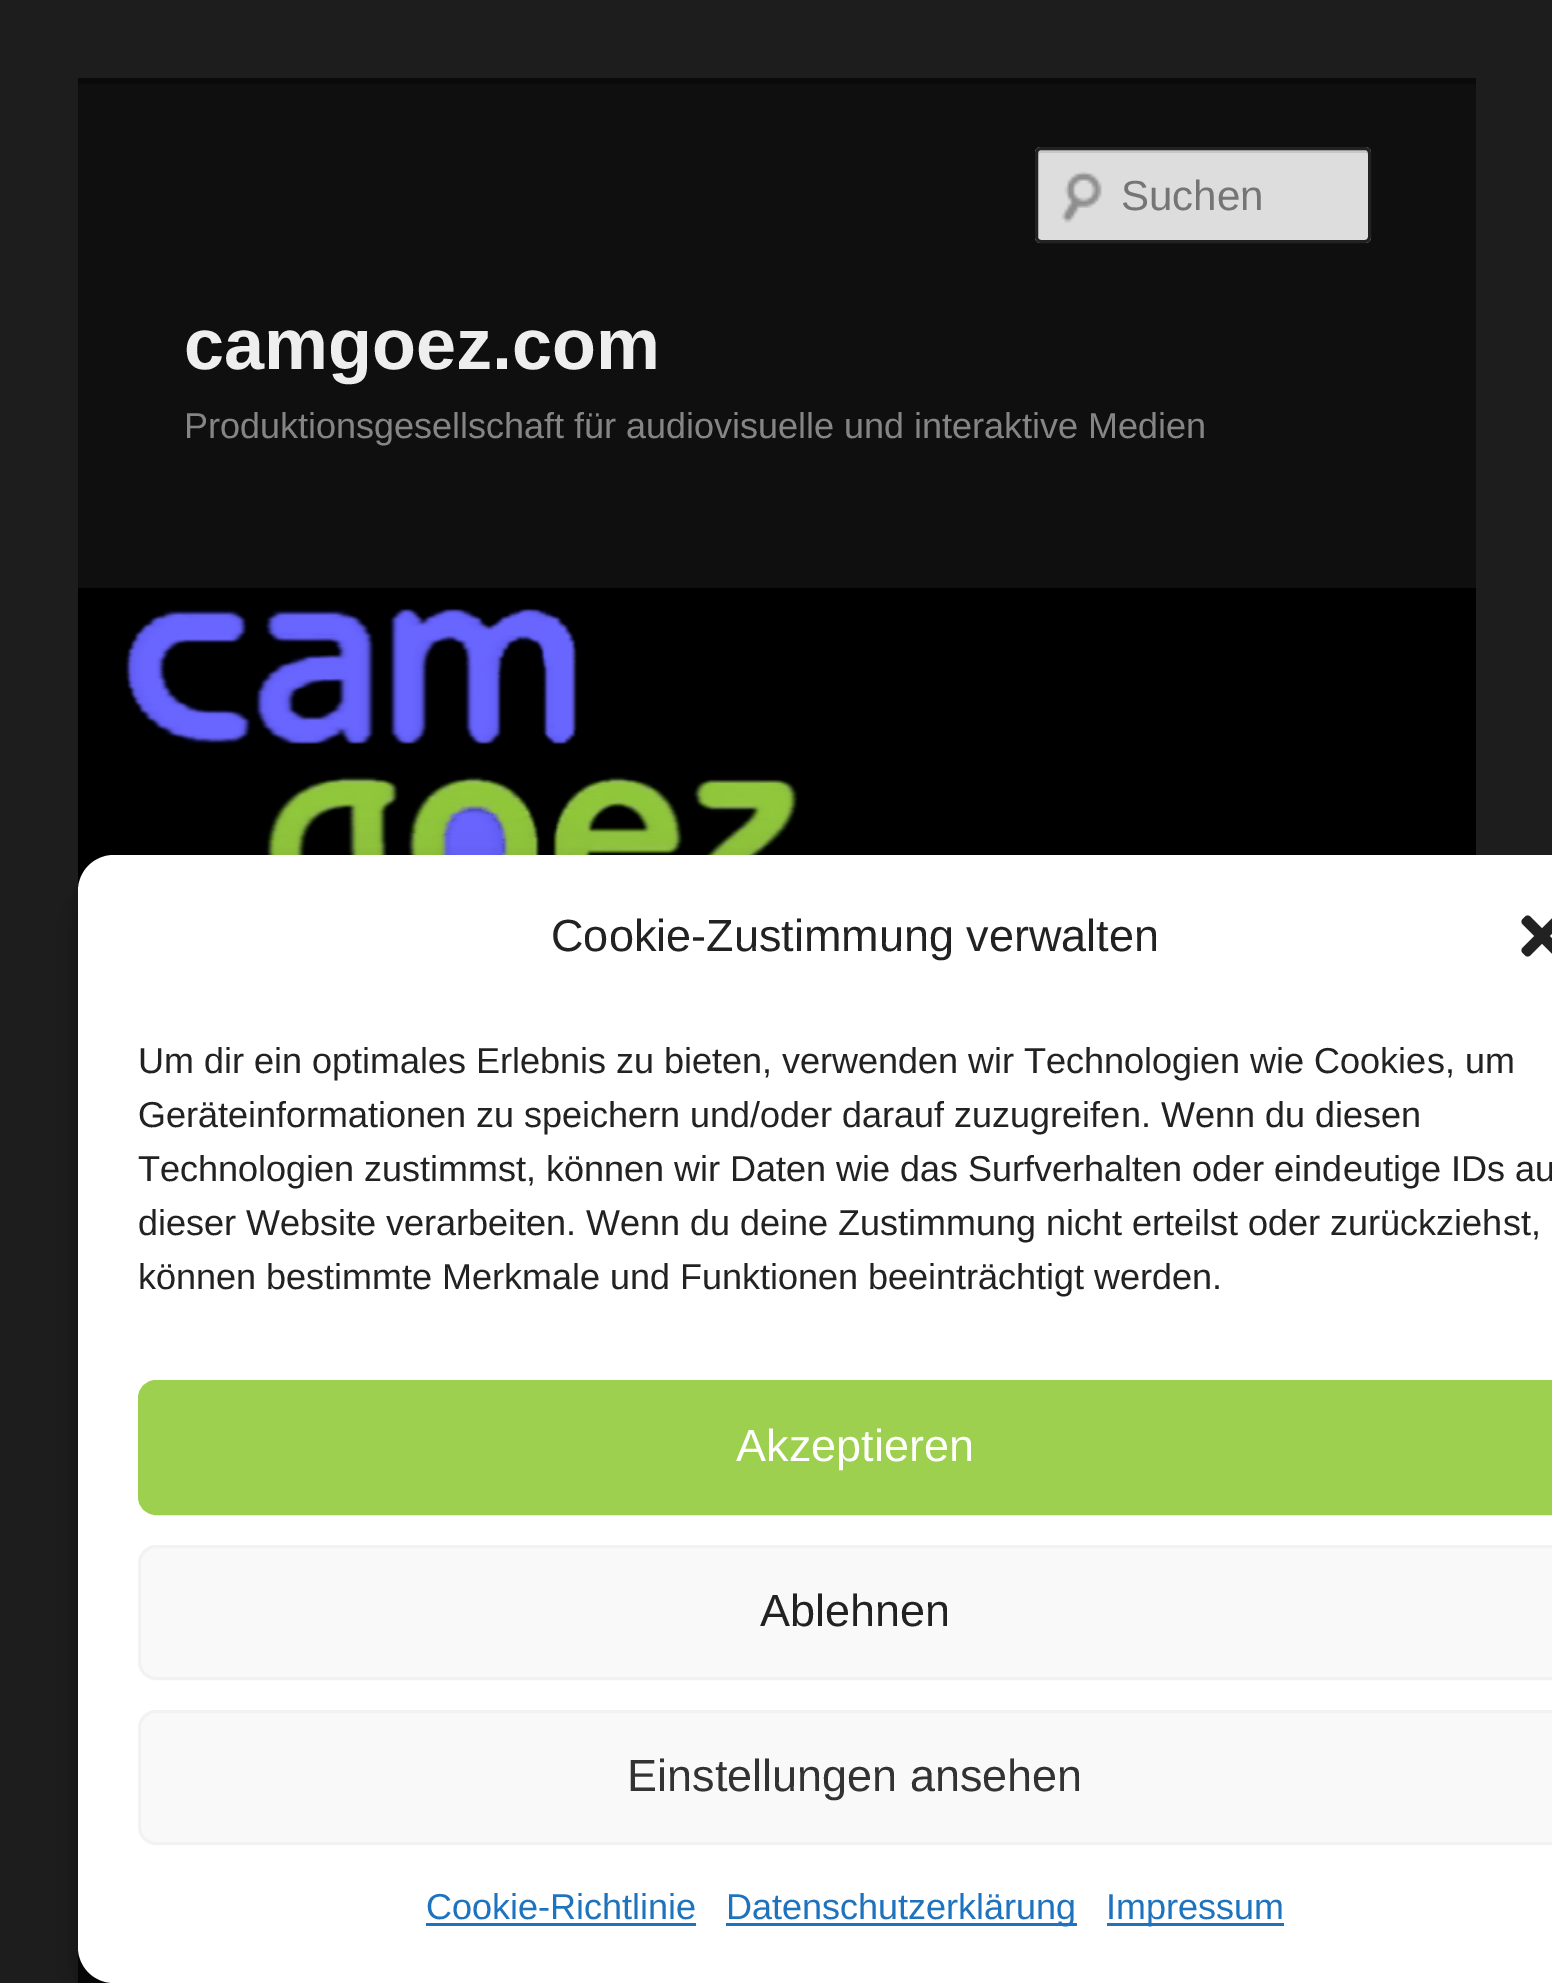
%!PS
<< /PageSize [1552 1983] /PageUsesTransparency true >> setpagedevice
/alpha { dup .setfillconstantalpha .setstrokeconstantalpha } def
/roundrect { 5 dict begin { /r /h /w /y /x } { exch def } forall
  x r add y moveto x w add y 2 copy h add r arct x w add y h add x 1 index r arct
  x y h add x y r arct x y 2 copy exch w add exch r arct closepath end } def
/shadow { 12 dict begin { /a /b /q /h /w /y /x } { exch def } forall gsave /was 0 def
  9 -2 -9 { dup b mul 4 div /e exch def 1 sub .425 mul 2.718 exch exp 1 add a .99 .min exch div /now exch def
    1 1 now sub 1 was sub div sub alpha /was now def
    w h .min e 2 mul add 0 gt { x e sub y e sub w e 2 mul add h e 2 mul add
      q e add b .6 mul add w h .min 2 div e add .min 0 .max roundrect fill } if } for grestore end } def
/picture { 5 dict begin { /h /w /y /x /name } { exch def } forall
  gsave x y translate w h scale
  w h 8 [w 0 0 h 0 0] name (r) file false 3 colorimage grestore end } def
0 .pushpdf14devicefilter
0 1983 translate 1 -1 scale
4 setmiterlimit
0.114 setgray
0 0 1552 1983 rectfill
0.059 setgray
78 84 1398 1866 rectfill
0.039 setgray
78 78 1398 6 rectfill
0.867 setgray
1035 147 336 96 6 roundrect fill
(img1.rgb) 1061 171 41 52 picture
0.78 setgray
newpath 1041 153 moveto 1365 153 lineto 1367 153 1368 154 1368 156 curveto 1368 153 lineto 1368 151 1367 150 1365 150 curveto 1041 150 lineto 1039 150 1038 151 1038 153 curveto 1038 156 lineto 1038 154 1039 153 1041 153 curveto closepath fill
0.133 setgray
3 setlinewidth
1036.5 148.5 333 93 4.5 roundrect stroke
/LiberationSans-Regular [42 0 0 -42 0 0] selectfont
0.459 setgray
1121 210 moveto (Suchen) show
/LiberationSans-Bold [72 0 0 -72 0 0] selectfont
0.933 setgray
184 369 moveto (camgoez.com) show
/LiberationSans-Regular [36 0 0 -36 0 0] selectfont
0.522 setgray
184 438 moveto (Produktionsgesellschaft für audiovisuelle und interaktive Medien) show
(img2.rgb) 78 588 1398 303 picture
0.024 setgray
78 1950 36 33 rectfill
0 setgray
78 873 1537 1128 36 9 0.23 shadow
78 885 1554 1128 36 30 0.19 shadow
1 setgray
78 855 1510 1128 36 roundrect fill
/LiberationSans-Regular [45 0 0 -45 0 0] selectfont
0.133 setgray
551 951 moveto (Cookie-Zustimmung verwalten) show
(img3.rgb) 1521 915 31 42 picture
/LiberationSans-Regular [36 0 0 -36 0 0] selectfont
138 1073 moveto (Um dir ein optimales Erlebnis zu bieten, verwenden wir Technologien wie Cookies, um) show
138 1127 moveto (Geräteinformationen zu speichern und/oder darauf zuzugreifen. Wenn du diesen) show
138 1181 moveto (Technologien zustimmst, können wir Daten wie das Surfverhalten oder eindeutige IDs au) show
138 1235 moveto (dieser Website verarbeiten. Wenn du deine Zustimmung nicht erteilst oder zurückziehst,) show
138 1289 moveto (können bestimmte Merkmale und Funktionen beeinträchtigt werden.) show
0.62 0.816 0.31 setrgbcolor
139.5 1381.5 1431 132 16.5 roundrect gsave fill grestore
stroke
/LiberationSans-Regular [45 0 0 -45 0 0] selectfont
1 setgray
736 1461 moveto (Akzeptieren) show
0.976 setgray
139.5 1546.5 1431 132 16.5 roundrect gsave fill grestore
0.949 setgray
stroke
0.133 setgray
760 1626 moveto (Ablehnen) show
0.976 setgray
139.5 1711.5 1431 132 16.5 roundrect gsave fill grestore
0.949 setgray
stroke
0.2 setgray
627 1791 moveto (Einstellungen ansehen) show
/LiberationSans-Regular [36 0 0 -36 0 0] selectfont
0.118 0.451 0.745 setrgbcolor
426 1919 moveto (Cookie-Richtlinie) show
426 1923 270 3 rectfill
726 1923 351 3 rectfill
726 1919 moveto (Datenschutzerklärung) show
1107 1923 177 3 rectfill
1106 1919 moveto (Impressum) show
.poppdf14devicefilter showpage
